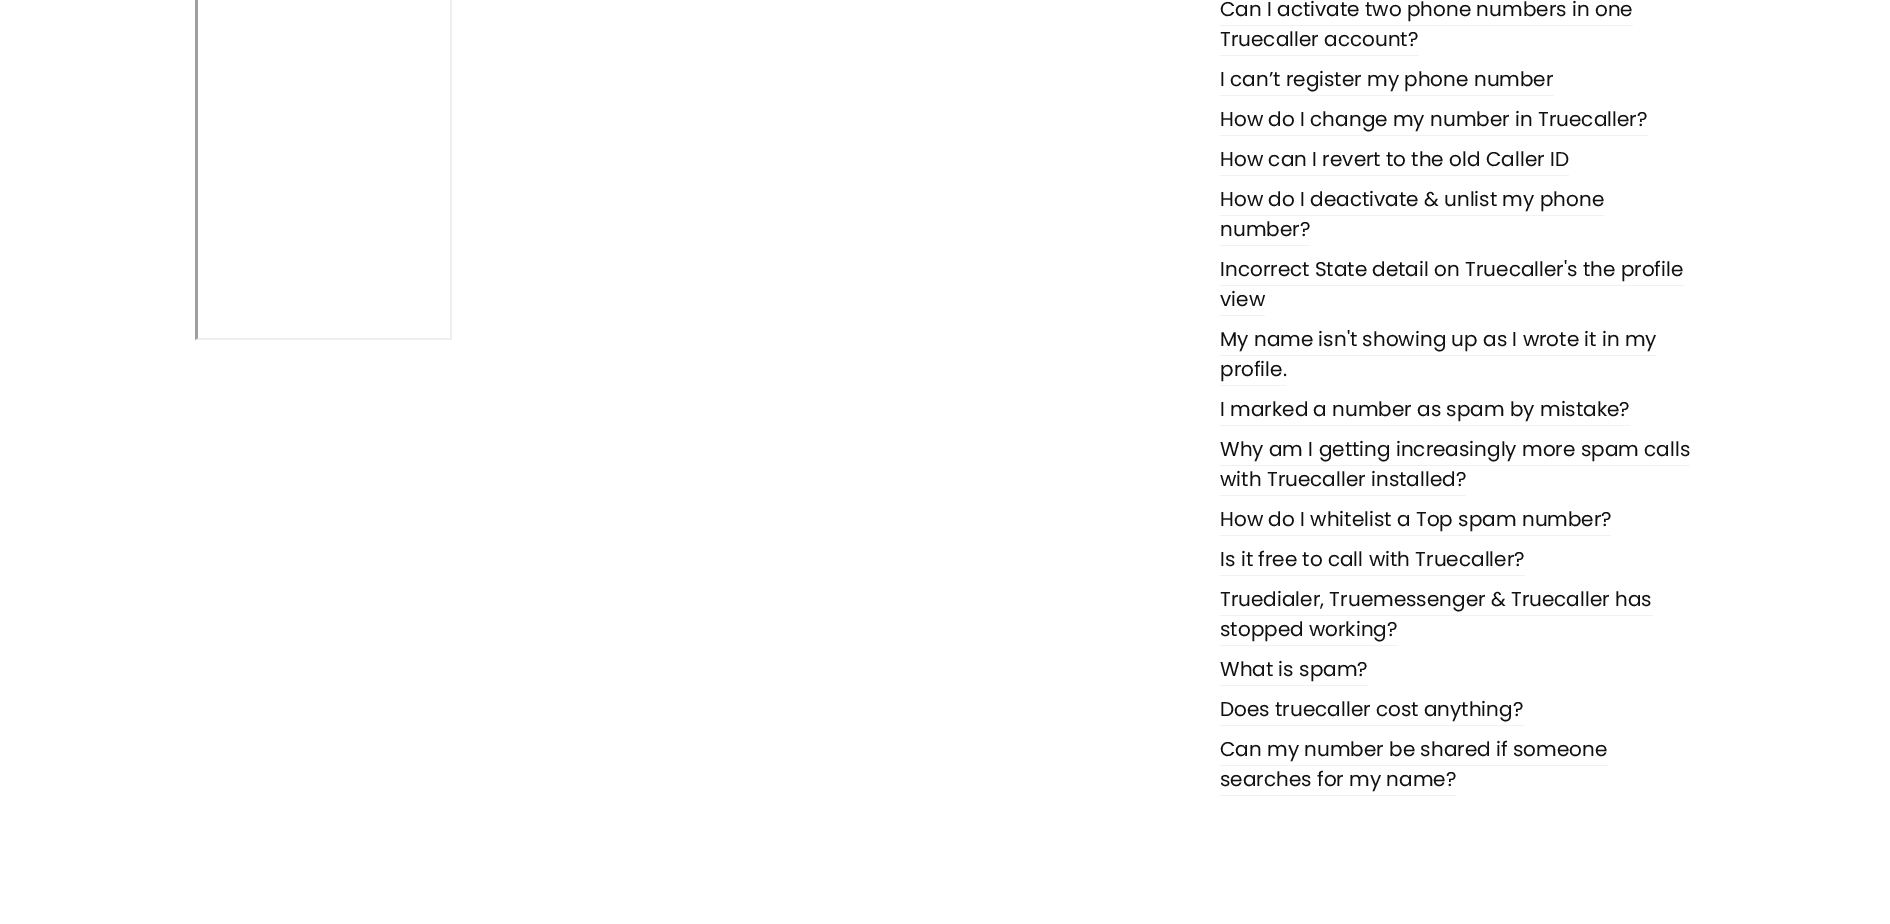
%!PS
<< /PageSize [1890 924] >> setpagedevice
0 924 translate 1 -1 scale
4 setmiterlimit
1 setgray
0 0 1890 924 rectfill
0.933 setgray
newpath 452 -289 moveto 452 340 lineto 450 338 lineto 450 -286 lineto closepath fill
newpath 452 340 moveto 195 340 lineto 198 338 lineto 450 338 lineto closepath fill
0.624 setgray
newpath 195 340 moveto 195 -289 lineto 198 -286 lineto 198 338 lineto closepath fill
/Poppins-Regular [20 0 0 -20 0 0] selectfont
0.067 setgray
1220 16 moveto (Can I activate two phone numbers in one) show
1220 46 moveto (Truecaller account?) show
0.945 setgray
1220 25 413 1 rectfill
1220 55 199 1 rectfill
0.067 setgray
1220 86 moveto (I can’t register my phone number) show
0.945 setgray
1220 95 334 1 rectfill
0.067 setgray
1220 126 moveto (How do I change my number in Truecaller?) show
0.945 setgray
1220 135 428 1 rectfill
0.067 setgray
1220 166 moveto (How can I revert to the old Caller ID) show
0.945 setgray
1220 175 349 1 rectfill
0.067 setgray
1220 206 moveto (How do I deactivate & unlist my phone) show
1220 236 moveto (number?) show
0.945 setgray
1220 215 384 1 rectfill
1220 245 90 1 rectfill
0.067 setgray
1220 276 moveto (Incorrect State detail on Truecaller's the profile) show
1220 306 moveto (view) show
0.945 setgray
1220 285 464 1 rectfill
1220 315 45 1 rectfill
0.067 setgray
1220 346 moveto (My name isn't showing up as I wrote it in my) show
0.945 setgray
1220 355 436 1 rectfill
0.067 setgray
1220 376 moveto (profile.) show
0.945 setgray
1220 385 66 1 rectfill
0.067 setgray
1220 416 moveto (I marked a number as spam by mistake?) show
0.945 setgray
1220 425 410 1 rectfill
0.067 setgray
1220 456 moveto (Why am I getting increasingly more spam calls) show
1220 486 moveto (with Truecaller installed?) show
0.945 setgray
1220 465 470 1 rectfill
1220 495 246 1 rectfill
0.067 setgray
1220 526 moveto (How do I whitelist a Top spam number?) show
0.945 setgray
1220 535 391 1 rectfill
0.067 setgray
1220 566 moveto (Is it free to call with Truecaller?) show
0.945 setgray
1220 575 305 1 rectfill
0.067 setgray
1220 606 moveto (Truedialer, Truemessenger & Truecaller has) show
0.945 setgray
1220 615 433 1 rectfill
0.067 setgray
1220 636 moveto (stopped working?) show
0.945 setgray
1220 645 178 1 rectfill
0.067 setgray
1220 676 moveto (What is spam?) show
0.945 setgray
1220 685 148 1 rectfill
0.067 setgray
1220 716 moveto (Does truecaller cost anything?) show
0.945 setgray
1220 725 304 1 rectfill
0.067 setgray
1220 756 moveto (Can my number be shared if someone) show
0.945 setgray
1220 765 388 1 rectfill
0.067 setgray
1220 786 moveto (searches for my name?) show
0.945 setgray
1220 795 236 1 rectfill
showpage
